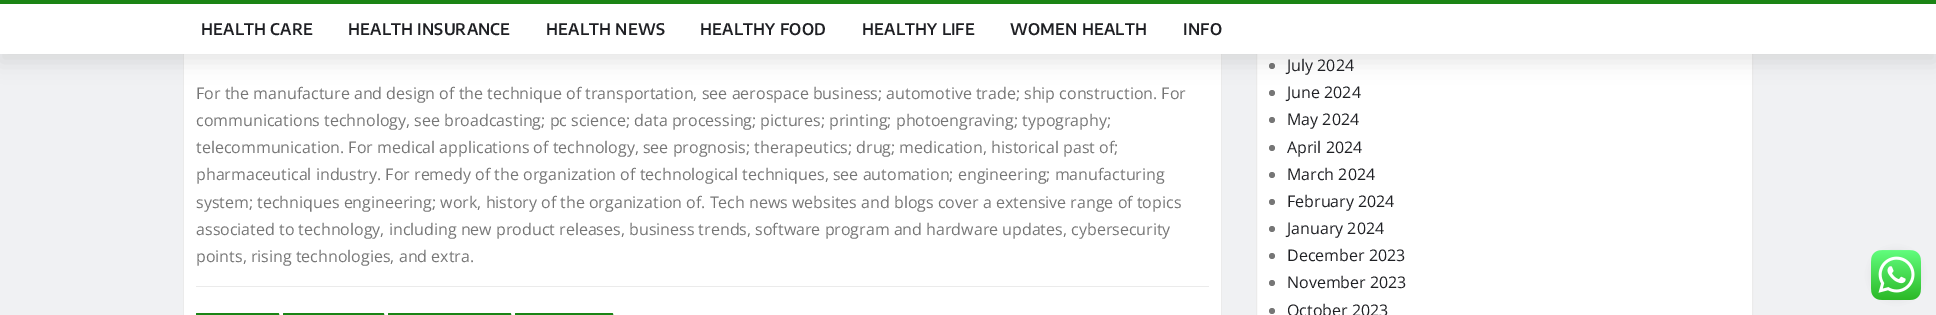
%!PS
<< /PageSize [1936 315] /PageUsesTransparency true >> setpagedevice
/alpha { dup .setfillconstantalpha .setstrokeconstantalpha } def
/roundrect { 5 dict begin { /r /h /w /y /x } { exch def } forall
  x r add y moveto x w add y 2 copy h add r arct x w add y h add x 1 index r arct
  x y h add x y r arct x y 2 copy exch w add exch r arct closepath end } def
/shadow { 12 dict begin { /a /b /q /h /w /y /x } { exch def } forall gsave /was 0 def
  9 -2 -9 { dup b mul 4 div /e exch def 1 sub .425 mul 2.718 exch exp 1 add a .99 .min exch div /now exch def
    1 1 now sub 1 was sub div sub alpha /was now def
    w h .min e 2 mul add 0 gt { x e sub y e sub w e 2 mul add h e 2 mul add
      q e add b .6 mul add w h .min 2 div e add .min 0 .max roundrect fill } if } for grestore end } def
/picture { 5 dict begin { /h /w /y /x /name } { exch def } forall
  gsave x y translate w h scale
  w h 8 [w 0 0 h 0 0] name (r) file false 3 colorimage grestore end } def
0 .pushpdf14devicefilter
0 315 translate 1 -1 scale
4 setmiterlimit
0.941 0.945 0.953 setrgbcolor
0 0 1936 315 rectfill
1 setgray
184 54 1037 261 rectfill
0.922 setgray
newpath 1222 -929 moveto 1222 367 lineto 1221 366 lineto 1221 -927 lineto closepath fill
newpath 183 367 moveto 183 -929 lineto 184 -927 lineto 184 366 lineto closepath fill
1 setgray
1257 54 495 261 rectfill
0.922 setgray
1256.5 -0.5 496 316 rectstroke
0.463 setgray
newpath 1272 66 3 0 360 arc closepath fill
newpath 1272 93 3 0 360 arc closepath fill
0 setgray
0 8 1936 54 0 10 0.1 shadow
1 setgray
0 4 1936 50 rectfill
0.106 0.518 0.082 setrgbcolor
0 0 1936 4 rectfill
/EncodeSansCondensed-SemiBold [16 0 0 -16 0 0] selectfont
0.122 0.125 0.141 setrgbcolor
201 35 moveto 0.2 0 (HEALTH CARE) ashow
348 35 moveto 0.2 0 (HEALTH INSURANCE) ashow
546 35 moveto 0.2 0 (HEALTH NEWS) ashow
700 35 moveto 0.2 0 (HEALTHY FOOD) ashow
862 35 moveto 0.2 0 (HEALTHY LIFE) ashow
1010 35 moveto 0.2 0 (WOMEN HEALTH) ashow
1183 35 moveto 0.2 0 (INFO) ashow
/OpenSans-Regular [16 0 0 -16 0 0] selectfont
0.463 setgray
196 99 moveto (For the manufacture and design of the technique of transportation, see aerospace business; automotive trade; ship construction. For) show
196 126 moveto (communications technology, see broadcasting; pc science; data processing; pictures; printing; photoengraving; typography;) show
196 153 moveto (telecommunication. For medical applications of technology, see prognosis; therapeutics; drug; medication, historical past of;) show
196 180 moveto (pharmaceutical industry. For remedy of the organization of technological techniques, see automation; engineering; manufacturing) show
196 208 moveto (system; techniques engineering; work, history of the organization of. Tech news websites and blogs cover a extensive range of topics) show
196 235 moveto (associated to technology, including new product releases, business trends, software program and hardware updates, cybersecurity) show
196 262 moveto (points, rising technologies, and extra.) show
0.922 setgray
196 286 1013 1 rectfill
0.106 0.518 0.082 setrgbcolor
196.5 313.5 82 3 0.5 roundrect gsave fill grestore
stroke
283.5 313.5 100 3 0.5 roundrect gsave fill grestore
stroke
388.5 313.5 122 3 0.5 roundrect gsave fill grestore
stroke
515.5 313.5 97 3 0.5 roundrect gsave fill grestore
stroke
0.122 0.125 0.141 setrgbcolor
1287 71 moveto (July 2024) show
1287 98 moveto (June 2024) show
0.463 setgray
newpath 1272 120 3 0 360 arc closepath fill
0.122 0.125 0.141 setrgbcolor
1287 125 moveto (May 2024) show
0.463 setgray
newpath 1272 148 3 0 360 arc closepath fill
0.122 0.125 0.141 setrgbcolor
1287 153 moveto (April 2024) show
0.463 setgray
newpath 1272 175 3 0 360 arc closepath fill
0.122 0.125 0.141 setrgbcolor
1287 180 moveto (March 2024) show
0.463 setgray
newpath 1272 202 3 0 360 arc closepath fill
0.122 0.125 0.141 setrgbcolor
1287 207 moveto (February 2024) show
0.463 setgray
newpath 1272 229 3 0 360 arc closepath fill
0.122 0.125 0.141 setrgbcolor
1287 234 moveto (January 2024) show
0.463 setgray
newpath 1272 256 3 0 360 arc closepath fill
0.122 0.125 0.141 setrgbcolor
1287 261 moveto (December 2023) show
0.463 setgray
newpath 1272 283 3 0 360 arc closepath fill
0.122 0.125 0.141 setrgbcolor
1287 288 moveto (November 2023) show
0.463 setgray
newpath 1272 311 3 0 360 arc closepath fill
0.122 0.125 0.141 setrgbcolor
1287 316 moveto (October 2023) show
0 setgray
1876 255 40 40 20 5 0.2 shadow
(img1.rgb) 1871 250 50 50 picture
.poppdf14devicefilter showpage
